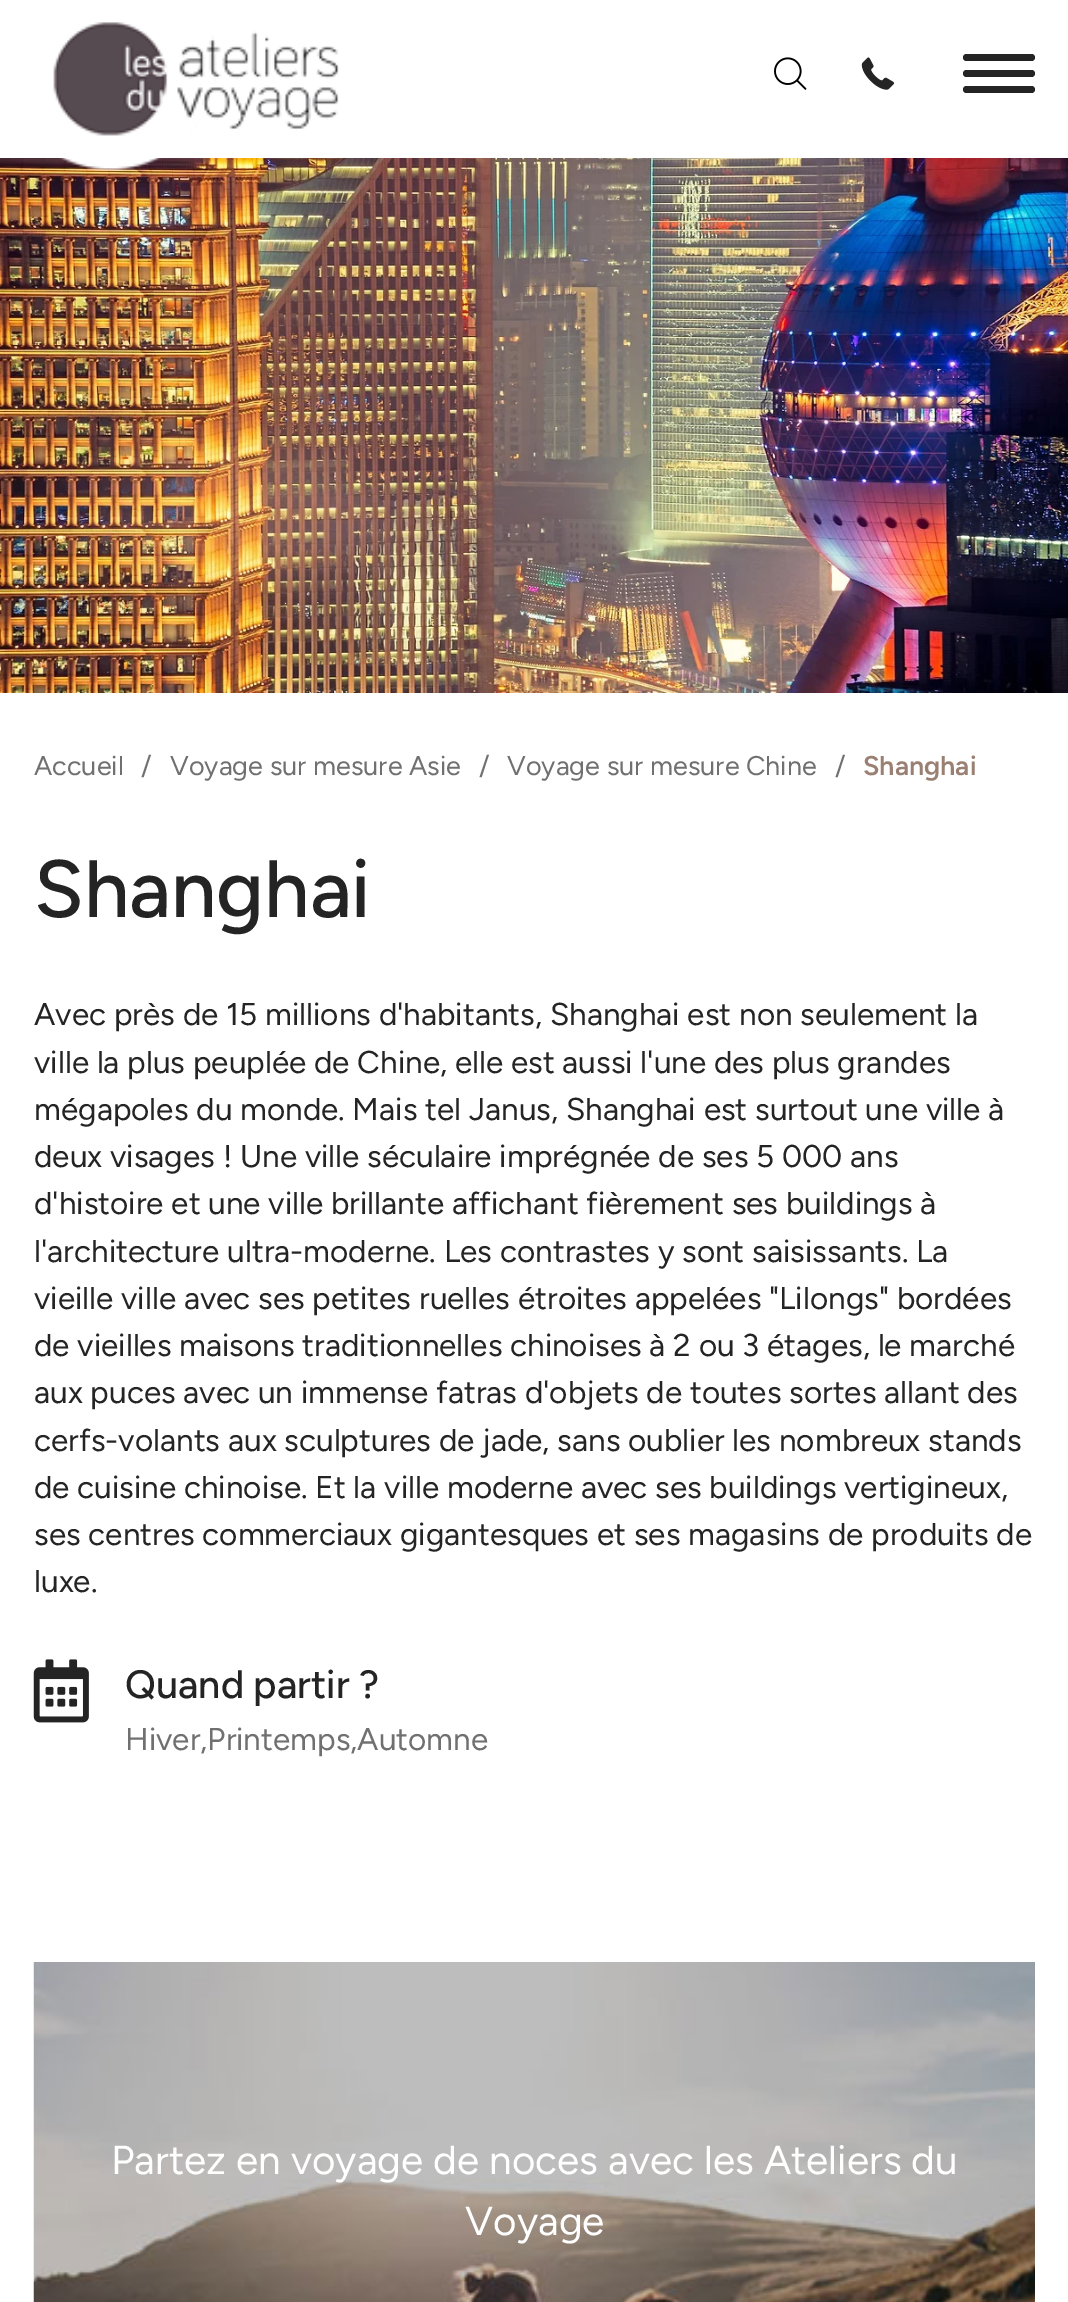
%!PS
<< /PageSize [1068 2302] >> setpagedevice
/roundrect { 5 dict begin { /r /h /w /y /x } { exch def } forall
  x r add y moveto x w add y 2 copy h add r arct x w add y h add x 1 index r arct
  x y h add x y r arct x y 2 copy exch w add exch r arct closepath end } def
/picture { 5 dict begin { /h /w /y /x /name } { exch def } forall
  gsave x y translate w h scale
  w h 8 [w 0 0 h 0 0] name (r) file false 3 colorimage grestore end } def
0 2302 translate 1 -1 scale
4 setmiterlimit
1 setgray
0 0 1068 2302 rectfill
(img4.rgb) 0 158 1068 535 picture
(img1.rgb) 53 22 287 149 picture
(img2.rgb) 774 57 33 33 picture
(img3.rgb) 861 57 34 33 picture
0.141 setgray
963 70 72 7 3.5 roundrect fill
963 54 72 7 3.5 roundrect fill
963 86 72 7 3.5 roundrect fill
/Figtree-Regular [27 0 0 -27 0 0] selectfont
0.439 setgray
34 775 moveto (Accueil) show
141 775 moveto (/) show
170 775 moveto (Voyage sur mesure Asie) show
479 775 moveto (/) show
507 775 moveto (Voyage sur mesure Chine) show
835 775 moveto (/) show
/Figtree-SemiBold [27 0 0 -27 0 0] selectfont
0.604 0.502 0.447 setrgbcolor
863 775 moveto (Shanghai) show
/Figtree-Medium [81 0 0 -81 0 0] selectfont
0.141 setgray
34 917 moveto (Shanghai) show
/Figtree-Regular [31.5 0 0 -31.5 0 0] selectfont
34 1025 moveto (Avec près de 15 millions d'habitants, Shanghai est non seulement la) show
34 1073 moveto (ville la plus peuplée de Chine, elle est aussi l'une des plus grandes) show
34 1120 moveto (mégapoles du monde. Mais tel Janus, Shanghai est surtout une ville à) show
34 1167 moveto (deux visages ! Une ville séculaire imprégnée de ses 5 000 ans) show
34 1214 moveto (d'histoire et une ville brillante affichant fièrement ses buildings à) show
34 1262 moveto (l'architecture ultra-moderne. Les contrastes y sont saisissants. La) show
34 1309 moveto (vieille ville avec ses petites ruelles étroites appelées "Lilongs" bordées) show
34 1356 moveto (de vieilles maisons traditionnelles chinoises à 2 ou 3 étages, le marché) show
34 1403 moveto (aux puces avec un immense fatras d'objets de toutes sortes allant des) show
34 1451 moveto (cerfs-volants aux sculptures de jade, sans oublier les nombreux stands) show
34 1498 moveto (de cuisine chinoise. Et la ville moderne avec ses buildings vertigineux,) show
34 1545 moveto (ses centres commerciaux gigantesques et ses magasins de produits de) show
34 1592 moveto (luxe.) show
(img5.rgb) 33 1659 56 64 picture
/Figtree-Medium [39.5 0 0 -39.5 0 0] selectfont
125 1698 moveto (Quand partir ?) show
/Figtree-Regular [31.5 0 0 -31.5 0 0] selectfont
0.439 setgray
125 1750 moveto (Hiver,Printemps,Automne) show
(img6.rgb) 33 1962 1002 340 picture
/Figtree-Regular [40.5 0 0 -40.5 0 0] selectfont
1 setgray
111 2174 moveto (Partez en voyage de noces avec les Ateliers du) show
465 2235 moveto (Voyage) show
showpage
